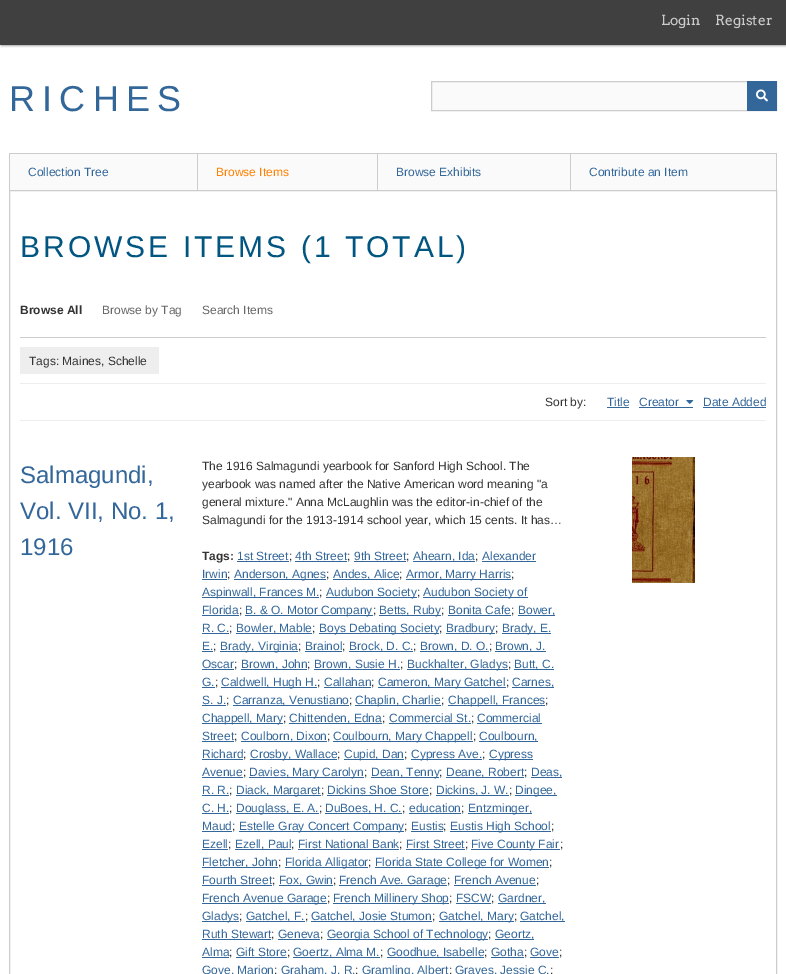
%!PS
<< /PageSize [786 974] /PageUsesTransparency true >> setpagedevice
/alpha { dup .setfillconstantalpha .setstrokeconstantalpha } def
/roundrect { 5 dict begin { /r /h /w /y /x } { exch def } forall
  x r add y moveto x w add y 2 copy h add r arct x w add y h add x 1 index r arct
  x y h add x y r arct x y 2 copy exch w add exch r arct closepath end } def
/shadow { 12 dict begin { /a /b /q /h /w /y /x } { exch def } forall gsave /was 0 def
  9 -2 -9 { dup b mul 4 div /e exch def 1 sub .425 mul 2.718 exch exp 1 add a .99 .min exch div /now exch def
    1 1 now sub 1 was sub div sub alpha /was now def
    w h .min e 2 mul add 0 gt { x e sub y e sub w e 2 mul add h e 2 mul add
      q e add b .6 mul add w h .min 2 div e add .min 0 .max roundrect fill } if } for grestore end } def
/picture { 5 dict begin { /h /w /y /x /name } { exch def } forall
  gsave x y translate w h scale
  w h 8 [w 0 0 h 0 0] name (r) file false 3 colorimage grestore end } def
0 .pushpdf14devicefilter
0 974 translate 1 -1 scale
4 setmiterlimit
1 setgray
0 0 786 974 rectfill
0 setgray
1 1 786 45 0 1 0.35 shadow
0.251 setgray
0 0 786 45 rectfill
/Arvo-Regular [14 0 0 -14 0 0] selectfont
0.8 setgray
661 25 moveto (Login) show
715 25 moveto (Register) show
/LiberationSans-Regular [36 0 0 -36 0 0] selectfont
0.2 0.4 0.6 setrgbcolor
9 111 moveto 7.25 0 (RICHES) ashow
0.98 setgray
432 82 315 28 rectfill
0.8 setgray
431.5 81.5 345 29 rectstroke
0.2 0.4 0.6 setrgbcolor
747 81 30 30 rectfill
(img1.rgb) 756 89 12 13 picture
0.8 setgray
776 153 1 37 rectfill
0.98 setgray
10 154 187 36 rectfill
0.8 setgray
9 153 188 1 rectfill
9 153 1 37 rectfill
/LiberationSans-Regular [12 0 0 -12 0 0] selectfont
0.2 0.4 0.6 setrgbcolor
28 176 moveto (Collection Tree) show
0.98 setgray
198 154 179 36 rectfill
0.8 setgray
197 153 579 1 rectfill
197 153 1 37 rectfill
1 0.502 0 setrgbcolor
216 176 moveto (Browse Items) show
0.98 setgray
378 154 192 36 rectfill
0.8 setgray
377 153 1 37 rectfill
0.2 0.4 0.6 setrgbcolor
396 176 moveto (Browse Exhibits) show
0.98 setgray
571 154 205 36 rectfill
0.8 setgray
570 153 1 37 rectfill
0.2 0.4 0.6 setrgbcolor
589 176 moveto (Contribute an Item) show
0.8 setgray
9.5 190.5 767 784 rectstroke
/LiberationSans-Regular [30 0 0 -30 0 0] selectfont
0.004 0.333 0.506 setrgbcolor
20 257 moveto 3 0 (BROWSE ITEMS \(1 TOTAL\)) ashow
0.8 setgray
20 337 746 1 rectfill
/LiberationSans-Bold [12 0 0 -12 0 0] selectfont
0.2 setgray
20 314 moveto (Browse All) show
/LiberationSans-Regular [12 0 0 -12 0 0] selectfont
0.4 setgray
102 314 moveto (Browse by Tag) show
202 314 moveto (Search Items) show
0.933 setgray
20 383 746 1 rectfill
20 347 139 27 rectfill
0.2 setgray
29 365 moveto (Tags: Maines, Schelle) show
545 406 moveto (Sort by:) show
0.2 0.4 0.6 setrgbcolor
607 406 moveto (Title) show
607 407 22 1 rectfill
639 406 moveto (Creator) show
639 407 54 1 rectfill
(img2.rgb) 686 400 8 4 picture
703 406 moveto (Date Added) show
703 407 63 1 rectfill
0.933 setgray
20 420 746 1 rectfill
/LiberationSans-Regular [24 0 0 -24 0 0] selectfont
0.2 0.4 0.6 setrgbcolor
20 483 moveto (Salmagundi,) show
20 519 moveto (Vol. VII, No. 1,) show
20 555 moveto (1916) show
/LiberationSans-Regular [12 0 0 -12 0 0] selectfont
0.2 setgray
202 470 moveto (The 1916 Salmagundi yearbook for Sanford High School. The) show
202 488 moveto (yearbook was named after the Native American word meaning "a) show
202 506 moveto (general mixture." Anna McLaughlin was the editor-in-chief of the) show
202 524 moveto (Salmagundi for the 1913-1914 school year, which 15 cents. It has…) show
(img3.rgb) 632 457 64 126 picture
/LiberationSans-Bold [12 0 0 -12 0 0] selectfont
202 560 moveto (Tags:) show
/LiberationSans-Regular [12 0 0 -12 0 0] selectfont
0.2 0.4 0.6 setrgbcolor
237 560 moveto (1st Street) show
237 561 52 1 rectfill
0.2 setgray
289 560 moveto (;) show
0.2 0.4 0.6 setrgbcolor
295 560 moveto (4th Street) show
295 561 52 1 rectfill
0.2 setgray
347 560 moveto (;) show
0.2 0.4 0.6 setrgbcolor
354 560 moveto (9th Street) show
354 561 52 1 rectfill
0.2 setgray
406 560 moveto (;) show
0.2 0.4 0.6 setrgbcolor
413 561 62 1 rectfill
413 560 moveto (Ahearn, Ida) show
0.2 setgray
475 560 moveto (;) show
0.2 0.4 0.6 setrgbcolor
482 560 moveto (Alexander) show
482 561 54 1 rectfill
202 578 moveto (Irwin) show
202 579 25 1 rectfill
0.2 setgray
227 578 moveto (;) show
0.2 0.4 0.6 setrgbcolor
234 579 92 1 rectfill
234 578 moveto (Anderson, Agnes) show
0.2 setgray
326 578 moveto (;) show
0.2 0.4 0.6 setrgbcolor
333 579 66 1 rectfill
333 578 moveto (Andes, Alice) show
0.2 setgray
399 578 moveto (;) show
0.2 0.4 0.6 setrgbcolor
406 579 105 1 rectfill
406 578 moveto (Armor, Marry Harris) show
0.2 setgray
511 578 moveto (;) show
0.2 0.4 0.6 setrgbcolor
202 597 117 1 rectfill
202 596 moveto (Aspinwall, Frances M.) show
0.2 setgray
319 596 moveto (;) show
0.2 0.4 0.6 setrgbcolor
326 597 91 1 rectfill
326 596 moveto (Audubon Society) show
0.2 setgray
417 596 moveto (;) show
0.2 0.4 0.6 setrgbcolor
423 597 105 1 rectfill
423 596 moveto (Audubon Society of) show
202 614 moveto (Florida) show
202 615 37 1 rectfill
0.2 setgray
239 614 moveto (;) show
0.2 0.4 0.6 setrgbcolor
245 615 128 1 rectfill
245 614 moveto (B. & O. Motor Company) show
0.2 setgray
373 614 moveto (;) show
0.2 0.4 0.6 setrgbcolor
379 615 62 1 rectfill
379 614 moveto (Betts, Ruby) show
0.2 setgray
441 614 moveto (;) show
0.2 0.4 0.6 setrgbcolor
448 614 moveto (Bonita Cafe) show
448 615 63 1 rectfill
0.2 setgray
511 614 moveto (;) show
0.2 0.4 0.6 setrgbcolor
518 615 37 1 rectfill
518 614 moveto (Bower,) show
202 632 moveto (R. C.) show
202 633 27 1 rectfill
0.2 setgray
229 632 moveto (;) show
0.2 0.4 0.6 setrgbcolor
236 633 76 1 rectfill
236 632 moveto (Bowler, Mable) show
0.2 setgray
312 632 moveto (;) show
0.2 0.4 0.6 setrgbcolor
319 633 120 1 rectfill
319 632 moveto (Boys Debating Society) show
0.2 setgray
439 632 moveto (;) show
0.2 0.4 0.6 setrgbcolor
446 633 49 1 rectfill
446 632 moveto (Bradbury) show
0.2 setgray
495 632 moveto (;) show
0.2 0.4 0.6 setrgbcolor
502 633 49 1 rectfill
502 632 moveto (Brady, E.) show
202 650 moveto (E.) show
202 651 11 1 rectfill
0.2 setgray
213 650 moveto (;) show
0.2 0.4 0.6 setrgbcolor
220 651 78 1 rectfill
220 650 moveto (Brady, Virginia) show
0.2 setgray
298 650 moveto (;) show
0.2 0.4 0.6 setrgbcolor
305 650 moveto (Brainol) show
305 651 37 1 rectfill
0.2 setgray
342 650 moveto (;) show
0.2 0.4 0.6 setrgbcolor
349 651 64 1 rectfill
349 650 moveto (Brock, D. C.) show
0.2 setgray
413 650 moveto (;) show
0.2 0.4 0.6 setrgbcolor
420 651 69 1 rectfill
420 650 moveto (Brown, D. O.) show
0.2 setgray
489 650 moveto (;) show
0.2 0.4 0.6 setrgbcolor
495 651 51 1 rectfill
495 650 moveto (Brown, J.) show
202 668 moveto (Oscar) show
202 669 32 1 rectfill
0.2 setgray
234 668 moveto (;) show
0.2 0.4 0.6 setrgbcolor
241 669 66 1 rectfill
241 668 moveto (Brown, John) show
0.2 setgray
307 668 moveto (;) show
0.2 0.4 0.6 setrgbcolor
314 669 86 1 rectfill
314 668 moveto (Brown, Susie H.) show
0.2 setgray
400 668 moveto (;) show
0.2 0.4 0.6 setrgbcolor
407 669 101 1 rectfill
407 668 moveto (Buckhalter, Gladys) show
0.2 setgray
508 668 moveto (;) show
0.2 0.4 0.6 setrgbcolor
514 669 40 1 rectfill
514 668 moveto (Butt, C.) show
202 686 moveto (G.) show
202 687 13 1 rectfill
0.2 setgray
215 686 moveto (;) show
0.2 0.4 0.6 setrgbcolor
221 687 96 1 rectfill
221 686 moveto (Caldwell, Hugh H.) show
0.2 setgray
317 686 moveto (;) show
0.2 0.4 0.6 setrgbcolor
324 686 moveto (Callahan) show
324 687 47 1 rectfill
0.2 setgray
371 686 moveto (;) show
0.2 0.4 0.6 setrgbcolor
378 687 128 1 rectfill
378 686 moveto (Cameron, Mary Gatchel) show
0.2 setgray
506 686 moveto (;) show
0.2 0.4 0.6 setrgbcolor
512 687 42 1 rectfill
512 686 moveto (Carnes,) show
202 704 moveto (S. J.) show
202 705 24 1 rectfill
0.2 setgray
226 704 moveto (;) show
0.2 0.4 0.6 setrgbcolor
233 705 116 1 rectfill
233 704 moveto (Carranza, Venustiano) show
0.2 setgray
349 704 moveto (;) show
0.2 0.4 0.6 setrgbcolor
355 705 86 1 rectfill
355 704 moveto (Chaplin, Charlie) show
0.2 setgray
441 704 moveto (;) show
0.2 0.4 0.6 setrgbcolor
448 705 97 1 rectfill
448 704 moveto (Chappell, Frances) show
0.2 setgray
545 704 moveto (;) show
0.2 0.4 0.6 setrgbcolor
202 723 81 1 rectfill
202 722 moveto (Chappell, Mary) show
0.2 setgray
283 722 moveto (;) show
0.2 0.4 0.6 setrgbcolor
289 723 93 1 rectfill
289 722 moveto (Chittenden, Edna) show
0.2 setgray
382 722 moveto (;) show
0.2 0.4 0.6 setrgbcolor
389 722 moveto (Commercial St.) show
389 723 82 1 rectfill
0.2 setgray
471 722 moveto (;) show
0.2 0.4 0.6 setrgbcolor
477 722 moveto (Commercial) show
477 723 65 1 rectfill
202 740 moveto (Street) show
202 741 32 1 rectfill
0.2 setgray
234 740 moveto (;) show
0.2 0.4 0.6 setrgbcolor
241 741 86 1 rectfill
241 740 moveto (Coulborn, Dixon) show
0.2 setgray
327 740 moveto (;) show
0.2 0.4 0.6 setrgbcolor
333 741 140 1 rectfill
333 740 moveto (Coulbourn, Mary Chappell) show
0.2 setgray
473 740 moveto (;) show
0.2 0.4 0.6 setrgbcolor
479 741 59 1 rectfill
479 740 moveto (Coulbourn,) show
202 758 moveto (Richard) show
202 759 41 1 rectfill
0.2 setgray
243 758 moveto (;) show
0.2 0.4 0.6 setrgbcolor
250 759 87 1 rectfill
250 758 moveto (Crosby, Wallace) show
0.2 setgray
337 758 moveto (;) show
0.2 0.4 0.6 setrgbcolor
344 759 60 1 rectfill
344 758 moveto (Cupid, Dan) show
0.2 setgray
404 758 moveto (;) show
0.2 0.4 0.6 setrgbcolor
411 759 71 1 rectfill
411 758 moveto (Cypress Ave.) show
0.2 setgray
482 758 moveto (;) show
0.2 0.4 0.6 setrgbcolor
489 759 44 1 rectfill
489 758 moveto (Cypress) show
202 776 moveto (Avenue) show
202 777 41 1 rectfill
0.2 setgray
243 776 moveto (;) show
0.2 0.4 0.6 setrgbcolor
249 777 115 1 rectfill
249 776 moveto (Davies, Mary Carolyn) show
0.2 setgray
364 776 moveto (;) show
0.2 0.4 0.6 setrgbcolor
371 777 68 1 rectfill
371 776 moveto (Dean, Tenny) show
0.2 setgray
439 776 moveto (;) show
0.2 0.4 0.6 setrgbcolor
446 777 78 1 rectfill
446 776 moveto (Deane, Robert) show
0.2 setgray
524 776 moveto (;) show
0.2 0.4 0.6 setrgbcolor
531 777 31 1 rectfill
531 776 moveto (Deas,) show
202 794 moveto (R. R.) show
202 795 27 1 rectfill
0.2 setgray
229 794 moveto (;) show
0.2 0.4 0.6 setrgbcolor
236 795 85 1 rectfill
236 794 moveto (Diack, Margaret) show
0.2 setgray
321 794 moveto (;) show
0.2 0.4 0.6 setrgbcolor
327 794 moveto (Dickins Shoe Store) show
327 795 102 1 rectfill
0.2 setgray
429 794 moveto (;) show
0.2 0.4 0.6 setrgbcolor
436 795 73 1 rectfill
436 794 moveto (Dickins, J. W.) show
0.2 setgray
509 794 moveto (;) show
0.2 0.4 0.6 setrgbcolor
515 795 42 1 rectfill
515 794 moveto (Dingee,) show
202 812 moveto (C. H.) show
202 813 27 1 rectfill
0.2 setgray
229 812 moveto (;) show
0.2 0.4 0.6 setrgbcolor
236 813 83 1 rectfill
236 812 moveto (Douglass, E. A.) show
0.2 setgray
319 812 moveto (;) show
0.2 0.4 0.6 setrgbcolor
325 813 77 1 rectfill
325 812 moveto (DuBoes, H. C.) show
0.2 setgray
402 812 moveto (;) show
0.2 0.4 0.6 setrgbcolor
409 812 moveto (education) show
409 813 52 1 rectfill
0.2 setgray
461 812 moveto (;) show
0.2 0.4 0.6 setrgbcolor
468 813 64 1 rectfill
468 812 moveto (Entzminger,) show
202 830 moveto (Maud) show
202 831 30 1 rectfill
0.2 setgray
232 830 moveto (;) show
0.2 0.4 0.6 setrgbcolor
239 831 165 1 rectfill
239 830 moveto (Estelle Gray Concert Company) show
0.2 setgray
404 830 moveto (;) show
0.2 0.4 0.6 setrgbcolor
411 830 moveto (Eustis) show
411 831 32 1 rectfill
0.2 setgray
443 830 moveto (;) show
0.2 0.4 0.6 setrgbcolor
450 831 101 1 rectfill
450 830 moveto (Eustis High School) show
0.2 setgray
551 830 moveto (;) show
0.2 0.4 0.6 setrgbcolor
202 848 moveto (Ezell) show
202 849 26 1 rectfill
0.2 setgray
228 848 moveto (;) show
0.2 0.4 0.6 setrgbcolor
235 849 56 1 rectfill
235 848 moveto (Ezell, Paul) show
0.2 setgray
291 848 moveto (;) show
0.2 0.4 0.6 setrgbcolor
298 848 moveto (First National Bank) show
298 849 101 1 rectfill
0.2 setgray
399 848 moveto (;) show
0.2 0.4 0.6 setrgbcolor
406 848 moveto (First Street) show
406 849 59 1 rectfill
0.2 setgray
465 848 moveto (;) show
0.2 0.4 0.6 setrgbcolor
471 849 89 1 rectfill
471 848 moveto (Five County Fair) show
0.2 setgray
560 848 moveto (;) show
0.2 0.4 0.6 setrgbcolor
202 867 76 1 rectfill
202 866 moveto (Fletcher, John) show
0.2 setgray
278 866 moveto (;) show
0.2 0.4 0.6 setrgbcolor
285 867 83 1 rectfill
285 866 moveto (Florida Alligator) show
0.2 setgray
368 866 moveto (;) show
0.2 0.4 0.6 setrgbcolor
375 867 174 1 rectfill
375 866 moveto (Florida State College for Women) show
0.2 setgray
549 866 moveto (;) show
0.2 0.4 0.6 setrgbcolor
202 884 moveto (Fourth Street) show
202 885 70 1 rectfill
0.2 setgray
272 884 moveto (;) show
0.2 0.4 0.6 setrgbcolor
279 885 54 1 rectfill
279 884 moveto (Fox, Gwin) show
0.2 setgray
333 884 moveto (;) show
0.2 0.4 0.6 setrgbcolor
339 885 108 1 rectfill
339 884 moveto (French Ave. Garage) show
0.2 setgray
447 884 moveto (;) show
0.2 0.4 0.6 setrgbcolor
454 884 moveto (French Avenue) show
454 885 82 1 rectfill
0.2 setgray
536 884 moveto (;) show
0.2 0.4 0.6 setrgbcolor
202 903 125 1 rectfill
202 902 moveto (French Avenue Garage) show
0.2 setgray
327 902 moveto (;) show
0.2 0.4 0.6 setrgbcolor
333 903 116 1 rectfill
333 902 moveto (French Millinery Shop) show
0.2 setgray
449 902 moveto (;) show
0.2 0.4 0.6 setrgbcolor
456 902 moveto (FSCW) show
456 903 35 1 rectfill
0.2 setgray
491 902 moveto (;) show
0.2 0.4 0.6 setrgbcolor
498 903 48 1 rectfill
498 902 moveto (Gardner,) show
202 921 37 1 rectfill
202 920 moveto (Gladys) show
0.2 setgray
239 920 moveto (;) show
0.2 0.4 0.6 setrgbcolor
246 921 59 1 rectfill
246 920 moveto (Gatchel, F.) show
0.2 setgray
305 920 moveto (;) show
0.2 0.4 0.6 setrgbcolor
311 921 121 1 rectfill
311 920 moveto (Gatchel, Josie Stumon) show
0.2 setgray
432 920 moveto (;) show
0.2 0.4 0.6 setrgbcolor
439 921 75 1 rectfill
439 920 moveto (Gatchel, Mary) show
0.2 setgray
514 920 moveto (;) show
0.2 0.4 0.6 setrgbcolor
520 921 45 1 rectfill
520 920 moveto (Gatchel,) show
202 938 moveto (Ruth Stewart) show
202 939 69 1 rectfill
0.2 setgray
271 938 moveto (;) show
0.2 0.4 0.6 setrgbcolor
278 938 moveto (Geneva) show
278 939 42 1 rectfill
0.2 setgray
320 938 moveto (;) show
0.2 0.4 0.6 setrgbcolor
327 939 161 1 rectfill
327 938 moveto (Georgia School of Technology) show
0.2 setgray
488 938 moveto (;) show
0.2 0.4 0.6 setrgbcolor
495 939 39 1 rectfill
495 938 moveto (Geortz,) show
202 956 moveto (Alma) show
202 957 27 1 rectfill
0.2 setgray
229 956 moveto (;) show
0.2 0.4 0.6 setrgbcolor
236 956 moveto (Gift Store) show
236 957 51 1 rectfill
0.2 setgray
287 956 moveto (;) show
0.2 0.4 0.6 setrgbcolor
293 957 87 1 rectfill
293 956 moveto (Goertz, Alma M.) show
0.2 setgray
380 956 moveto (;) show
0.2 0.4 0.6 setrgbcolor
387 957 97 1 rectfill
387 956 moveto (Goodhue, Isabelle) show
0.2 setgray
484 956 moveto (;) show
0.2 0.4 0.6 setrgbcolor
491 956 moveto (Gotha) show
491 957 33 1 rectfill
0.2 setgray
524 956 moveto (;) show
0.2 0.4 0.6 setrgbcolor
530 956 moveto (Gove) show
530 957 29 1 rectfill
0.2 setgray
559 956 moveto (;) show
0.2 0.4 0.6 setrgbcolor
202 974 moveto (Gove, Marion) show
0.2 setgray
274 974 moveto (;) show
0.2 0.4 0.6 setrgbcolor
281 974 moveto (Graham, J. R.) show
0.2 setgray
355 974 moveto (;) show
0.2 0.4 0.6 setrgbcolor
362 974 moveto (Gramling, Albert) show
0.2 setgray
449 974 moveto (;) show
0.2 0.4 0.6 setrgbcolor
455 974 moveto (Graves, Jessie C.) show
0.2 setgray
550 974 moveto (;) show
.poppdf14devicefilter showpage
